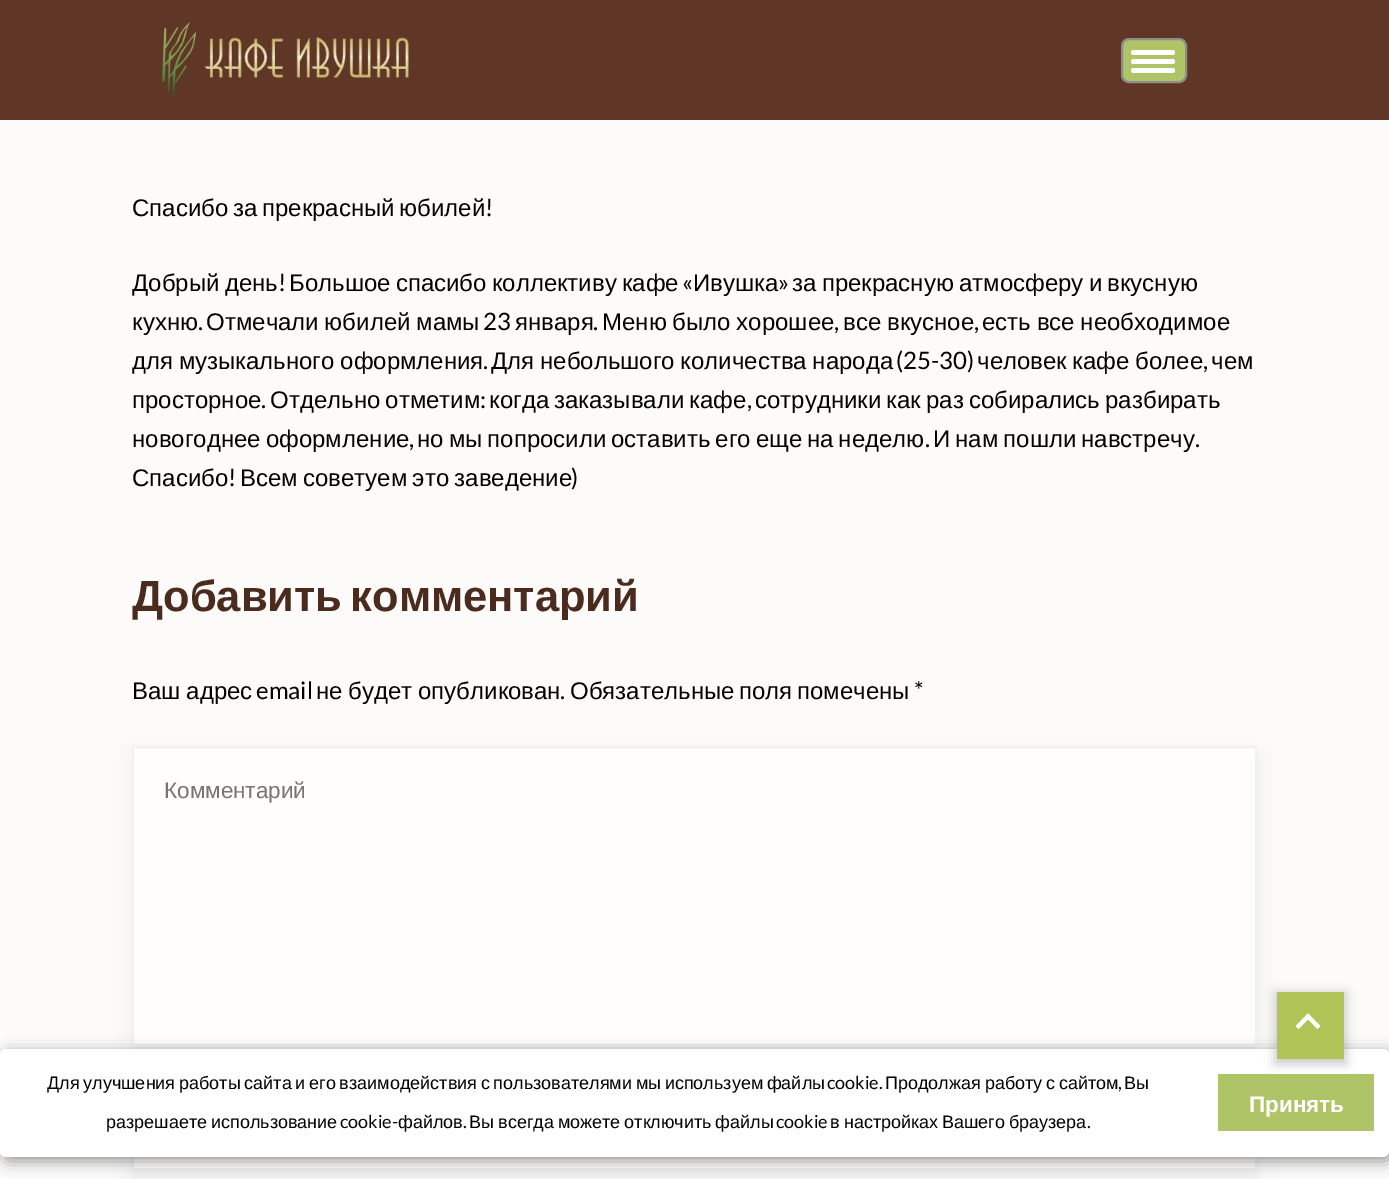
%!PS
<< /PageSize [1389 1179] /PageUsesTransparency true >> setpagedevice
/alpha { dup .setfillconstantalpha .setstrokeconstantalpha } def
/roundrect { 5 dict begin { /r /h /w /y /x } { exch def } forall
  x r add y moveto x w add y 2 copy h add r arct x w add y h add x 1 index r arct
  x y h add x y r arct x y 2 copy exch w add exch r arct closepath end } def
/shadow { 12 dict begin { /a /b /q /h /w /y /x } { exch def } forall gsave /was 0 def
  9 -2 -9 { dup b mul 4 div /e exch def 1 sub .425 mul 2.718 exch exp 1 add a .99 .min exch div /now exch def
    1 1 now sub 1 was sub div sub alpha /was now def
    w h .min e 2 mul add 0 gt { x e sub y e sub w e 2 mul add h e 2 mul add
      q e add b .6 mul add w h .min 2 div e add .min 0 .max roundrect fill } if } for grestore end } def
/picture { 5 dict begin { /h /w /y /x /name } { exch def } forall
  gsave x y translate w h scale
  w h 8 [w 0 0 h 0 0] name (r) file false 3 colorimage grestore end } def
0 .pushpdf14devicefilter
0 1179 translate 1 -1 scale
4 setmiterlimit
0.988 0.984 0.98 setrgbcolor
0 0 1389 1179 rectfill
0.376 0.216 0.149 setrgbcolor
0 0 1389 120 rectfill
(img1.rgb) 162 22 247 75 picture
0.686 0.769 0.4 setrgbcolor
1122 39 64 43 7 roundrect gsave fill grestore
0.553 setgray
2 setlinewidth
stroke
1 setgray
1131 50 44 5 2.5 roundrect fill
1131 59 44 5 2.5 roundrect fill
1131 68 44 5 2.5 roundrect fill
/LiberationSans-Regular [24 0 0 -24 0 0] selectfont
0 setgray
132 216 moveto -2 0 32 (Спасибо за прекрасный юбилей) widthshow
/Lato-Regular [24 0 0 -24 0 0] selectfont
485 216 moveto (!) show
/LiberationSans-Regular [24 0 0 -24 0 0] selectfont
132 291 moveto -1.5 0 32 (Добрый день) widthshow
/Lato-Regular [24 0 0 -24 0 0] selectfont
278 291 moveto (!) show
/LiberationSans-Regular [24 0 0 -24 0 0] selectfont
289 291 moveto -1.5 0 32 (Большое спасибо коллективу кафе) widthshow
/Lato-Regular [24 0 0 -24 0 0] selectfont
682 291 moveto («) show
/LiberationSans-Regular [24 0 0 -24 0 0] selectfont
693 291 moveto (Ивушка) show
/Lato-Regular [24 0 0 -24 0 0] selectfont
778 291 moveto (») show
/LiberationSans-Regular [24 0 0 -24 0 0] selectfont
792 291 moveto -1.5 0 32 (за прекрасную атмосферу и вкусную) widthshow
132 330 moveto (кухню) show
/Lato-Regular [24 0 0 -24 0 0] selectfont
198 330 moveto (.) show
/LiberationSans-Regular [24 0 0 -24 0 0] selectfont
206 330 moveto -1 0 32 (Отмечали юбилей мамы) widthshow
/Lato-Regular [24 0 0 -24 0 0] selectfont
483 330 moveto (23) show
/LiberationSans-Regular [24 0 0 -24 0 0] selectfont
515 330 moveto (января) show
/Lato-Regular [24 0 0 -24 0 0] selectfont
593 330 moveto (.) show
/LiberationSans-Regular [24 0 0 -24 0 0] selectfont
602 330 moveto -1 0 32 (Меню было хорошее) widthshow
/Lato-Regular [24 0 0 -24 0 0] selectfont
834 330 moveto (,) show
/LiberationSans-Regular [24 0 0 -24 0 0] selectfont
843 330 moveto -1 0 32 (все вкусное) widthshow
/Lato-Regular [24 0 0 -24 0 0] selectfont
974 330 moveto (,) show
/LiberationSans-Regular [24 0 0 -24 0 0] selectfont
982 330 moveto -1 0 32 (есть все необходимое) widthshow
132 369 moveto -1 0 32 (для музыкального оформления) widthshow
/Lato-Regular [24 0 0 -24 0 0] selectfont
483 369 moveto (.) show
/LiberationSans-Regular [24 0 0 -24 0 0] selectfont
491 369 moveto -1 0 32 (Для небольшого количества народа) widthshow
/Lato-Regular [24 0 0 -24 0 0] selectfont
896 369 moveto (\(25-30\)) show
/LiberationSans-Regular [24 0 0 -24 0 0] selectfont
977 369 moveto -1 0 32 (человек кафе более) widthshow
/Lato-Regular [24 0 0 -24 0 0] selectfont
1203 369 moveto (,) show
/LiberationSans-Regular [24 0 0 -24 0 0] selectfont
1211 369 moveto (чем) show
132 408 moveto (просторное) show
/Lato-Regular [24 0 0 -24 0 0] selectfont
261 408 moveto (.) show
/LiberationSans-Regular [24 0 0 -24 0 0] selectfont
270 408 moveto -1.5 0 32 (Отдельно отметим) widthshow
/Lato-Regular [24 0 0 -24 0 0] selectfont
480 408 moveto (:) show
/LiberationSans-Regular [24 0 0 -24 0 0] selectfont
489 408 moveto -1.5 0 32 (когда заказывали кафе) widthshow
/Lato-Regular [24 0 0 -24 0 0] selectfont
747 408 moveto (,) show
/LiberationSans-Regular [24 0 0 -24 0 0] selectfont
755 408 moveto -1.5 0 32 (сотрудники как раз собирались разбирать) widthshow
132 447 moveto -1.75 0 32 (новогоднее оформление) widthshow
/Lato-Regular [24 0 0 -24 0 0] selectfont
409 447 moveto (,) show
/LiberationSans-Regular [24 0 0 -24 0 0] selectfont
417 447 moveto -1.75 0 32 (но мы попросили оставить его еще на неделю) widthshow
/Lato-Regular [24 0 0 -24 0 0] selectfont
925 447 moveto (.) show
/LiberationSans-Regular [24 0 0 -24 0 0] selectfont
933 447 moveto -1.75 0 32 (И нам пошли навстречу) widthshow
/Lato-Regular [24 0 0 -24 0 0] selectfont
1195 447 moveto (.) show
/LiberationSans-Regular [24 0 0 -24 0 0] selectfont
132 486 moveto (Спасибо) show
/Lato-Regular [24 0 0 -24 0 0] selectfont
228 486 moveto (!) show
/LiberationSans-Regular [24 0 0 -24 0 0] selectfont
240 486 moveto -1.5 0 32 (Всем советуем это заведение) widthshow
/Lato-Regular [24 0 0 -24 0 0] selectfont
571 486 moveto (\)) show
/LiberationSans-Bold [43.5 0 0 -43.5 0 0] selectfont
0.294 0.169 0.118 setrgbcolor
132 611 moveto -4 0 32 (Добавить комментарий) widthshow
/LiberationSans-Regular [24 0 0 -24 0 0] selectfont
0 setgray
132 699 moveto -1 0 32 (Ваш адрес) widthshow
/Lato-Regular [24 0 0 -24 0 0] selectfont
256 699 moveto (email) show
/LiberationSans-Regular [24 0 0 -24 0 0] selectfont
316 699 moveto -1 0 32 (не будет опубликован) widthshow
/Lato-Regular [24 0 0 -24 0 0] selectfont
560 699 moveto (.) show
/LiberationSans-Regular [24 0 0 -24 0 0] selectfont
570 699 moveto -2 0 32 (Обязательные поля помечены) widthshow
/Lato-Regular [24 0 0 -24 0 0] selectfont
914 699 moveto (*) show
0.725 setgray
132 755 1125 300 0 8.5 0.25 shadow
1 0.996 0.992 setrgbcolor
newpath 133 747 moveto 1256 747 lineto 1256 1045 lineto 133 1045 lineto closepath gsave fill grestore
0.949 0.945 0.941 setrgbcolor
stroke
/LiberationSans-Regular [22.5 0 0 -22.5 0 0] selectfont
0.459 setgray
164 798 moveto (Комментарий) show
0.725 setgray
132 1091 1125 88 0 8.5 0.25 shadow
1 0.996 0.992 setrgbcolor
134 1157 1121 11 rectfill
0.949 0.945 0.941 setrgbcolor
133 1083 1123 86 rectstroke
0 setgray
3 1053 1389 108 6 7.5 0.4 shadow
1 setgray
0 1049 1389 108 6 roundrect fill
0.686 0.769 0.4 setrgbcolor
1218 1074 156 57 rectfill
0.251 setgray
1275 993 71 71 0 6 0.3 shadow
0.686 0.769 0.337 setrgbcolor
1277 992 67 67 rectfill
1 setgray
newpath 1298.5 1029 moveto 1295.5 1026 lineto 1308 1013.5 lineto 1311 1016.5 lineto closepath fill
newpath 1317.5 1029 moveto 1305 1016.5 lineto 1308 1013.5 lineto 1320.5 1026 lineto closepath fill
/LiberationSans-Regular [18 0 0 -18 0 0] selectfont
0 setgray
47 1089 moveto -1.25 0 32 (Для улучшения работы сайта и его взаимодействия с пользователями мы используем файлы) widthshow
/Lato-Regular [18 0 0 -18 0 0] selectfont
827 1089 moveto (cookie.) show
/LiberationSans-Regular [18 0 0 -18 0 0] selectfont
885 1089 moveto -1.25 0 32 (Продолжая работу с сайтом) widthshow
/Lato-Regular [18 0 0 -18 0 0] selectfont
1118 1089 moveto (,) show
/LiberationSans-Regular [18 0 0 -18 0 0] selectfont
1124 1089 moveto (Вы) show
106 1128 moveto -1 0 32 (разрешаете использование) widthshow
/Lato-Regular [18 0 0 -18 0 0] selectfont
340 1128 moveto (cookie-) show
/LiberationSans-Regular [18 0 0 -18 0 0] selectfont
398 1128 moveto (файлов) show
/Lato-Regular [18 0 0 -18 0 0] selectfont
463 1128 moveto (.) show
/LiberationSans-Regular [18 0 0 -18 0 0] selectfont
469 1128 moveto -1 0 32 (Вы всегда можете отключить файлы) widthshow
/Lato-Regular [18 0 0 -18 0 0] selectfont
776 1128 moveto (cookie) show
/LiberationSans-Regular [18 0 0 -18 0 0] selectfont
830 1128 moveto -1 0 32 (в настройках Вашего браузера) widthshow
/Lato-Regular [18 0 0 -18 0 0] selectfont
1087 1128 moveto (.) show
/LiberationSans-Bold [22.5 0 0 -22.5 0 0] selectfont
1 setgray
1249 1112 moveto (Принять) show
.poppdf14devicefilter showpage
